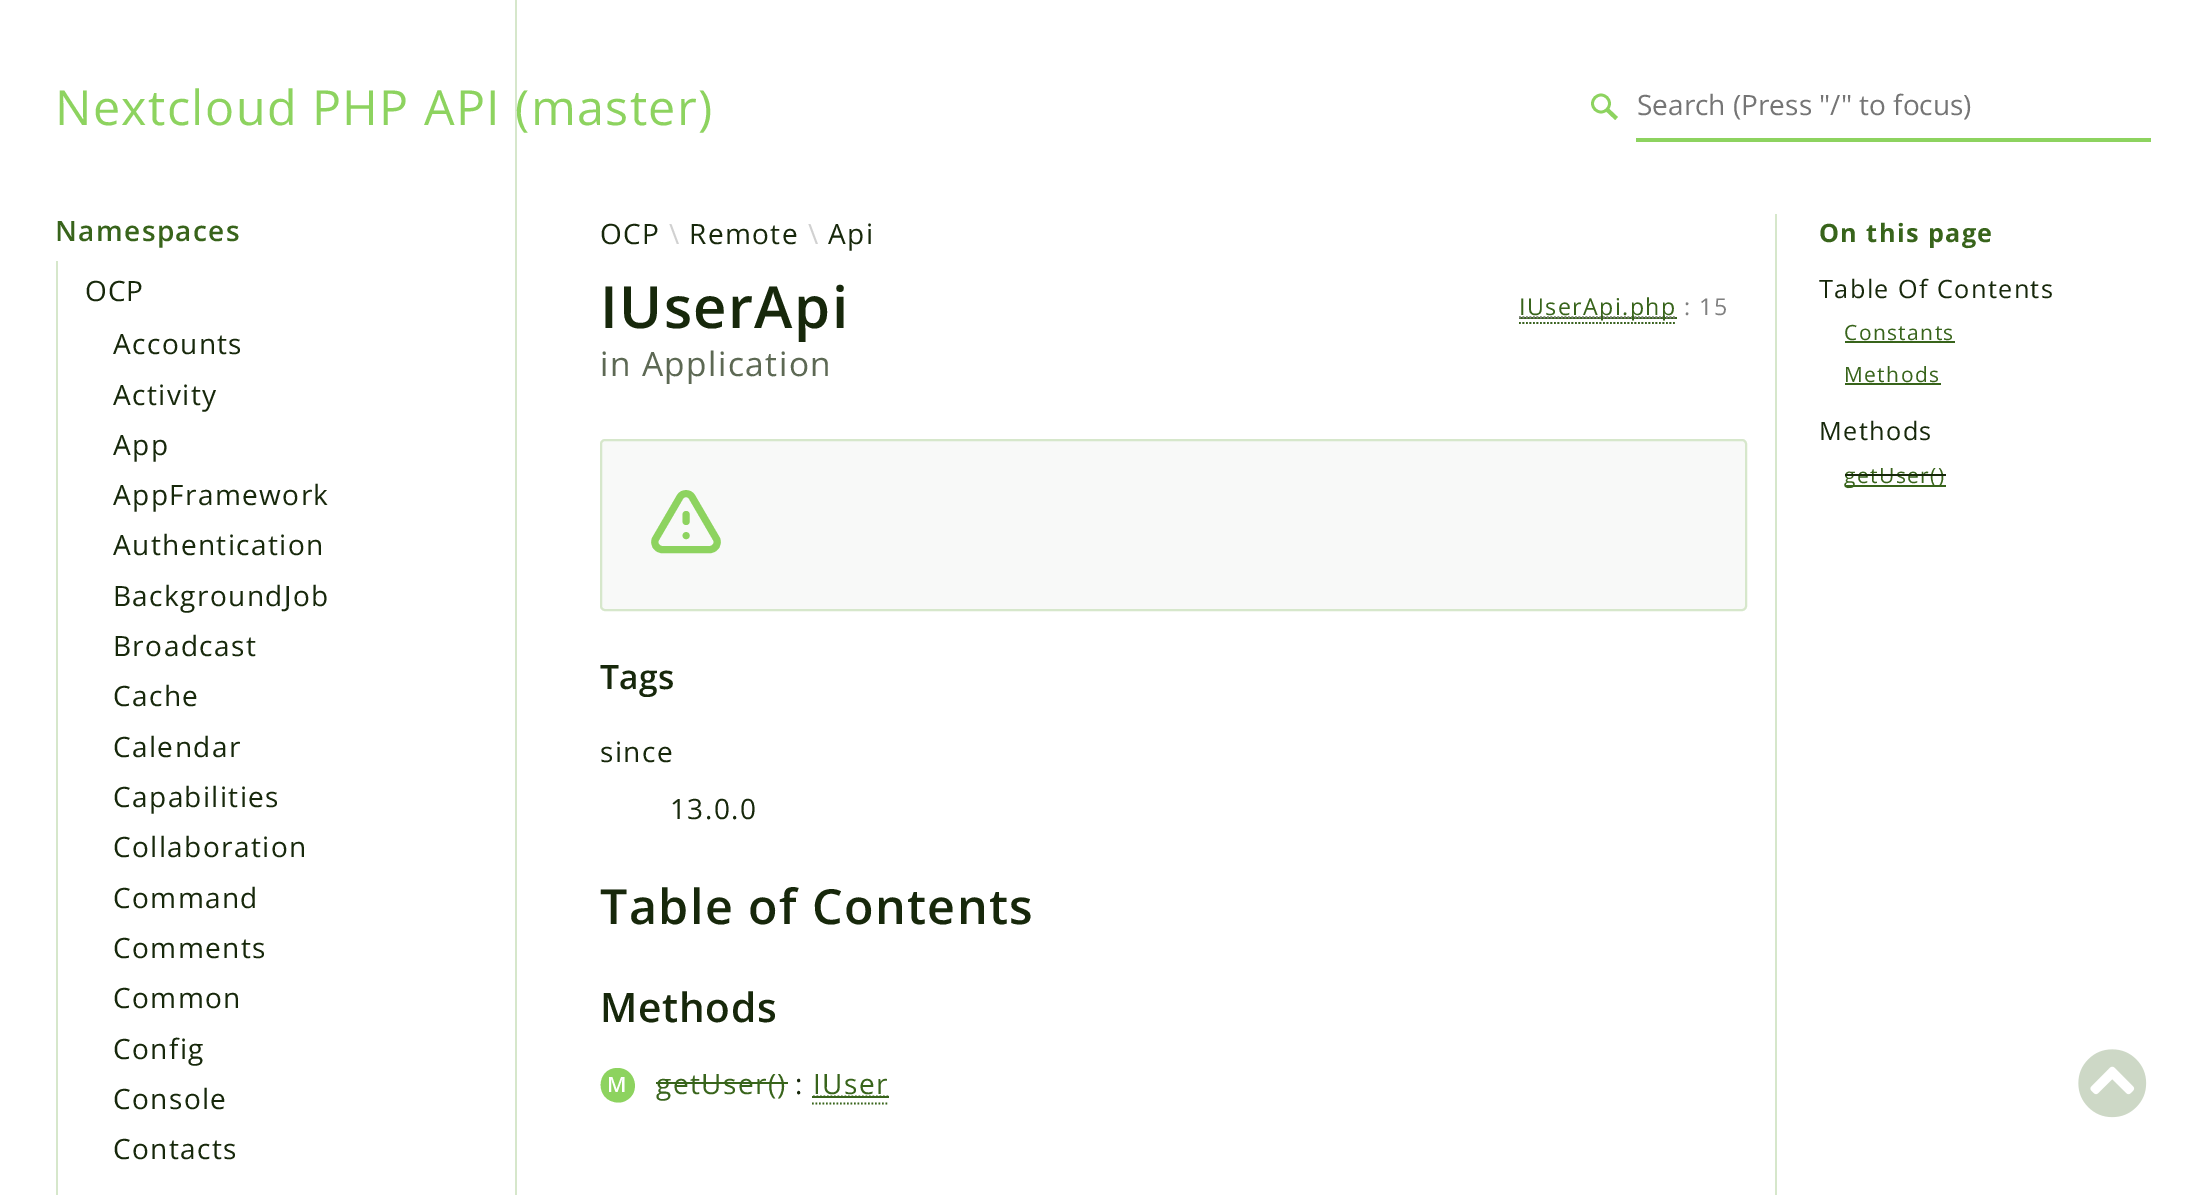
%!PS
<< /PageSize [2205 1195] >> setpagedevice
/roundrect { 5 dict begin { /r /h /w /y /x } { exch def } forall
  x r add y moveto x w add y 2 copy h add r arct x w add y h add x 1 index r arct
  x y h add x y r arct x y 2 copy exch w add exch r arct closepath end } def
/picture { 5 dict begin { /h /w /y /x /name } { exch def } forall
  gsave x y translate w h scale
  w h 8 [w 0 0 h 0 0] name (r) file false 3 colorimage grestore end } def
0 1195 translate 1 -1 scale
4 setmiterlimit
1 setgray
0 0 2205 1195 rectfill
0.839 0.906 0.796 setrgbcolor
515 0 2 1195 rectfill
/OpenSans-Regular [48.4 0 0 -48.4 0 0] selectfont
0.553 0.827 0.373 setrgbcolor
55 125 moveto 1.4 0 (Nextcloud PHP API \(master\)) ashow
2.7 setlinewidth
newpath 1601 103.5 8.5 0 360 arc closepath stroke
4 setlinewidth
newpath 1607.5 110 moveto 1616.5 118.5 lineto stroke
1636 138 515 4 rectfill
/OpenSans-Regular [28 0 0 -28 0 0] selectfont
0.459 setgray
1637 115 moveto (Search \(Press "/" to focus\)) show
/OpenSans-SemiBold [28 0 0 -28 0 0] selectfont
0.22 0.392 0.106 setrgbcolor
55 241 moveto 1.4 0 (Namespaces) ashow
0.839 0.906 0.796 setrgbcolor
56 261 2 934 rectfill
/OpenSans-Regular [28 0 0 -28 0 0] selectfont
0.09 0.157 0.043 setrgbcolor
85 301 moveto 0.75 0 (OCP) ashow
113 354 moveto 1.4 0 (Accounts) ashow
113 405 moveto 1.4 0 (Activity) ashow
113 455 moveto 1.4 0 (App) ashow
113 505 moveto 1.4 0 (AppFramework) ashow
113 555 moveto 1.4 0 (Authentication) ashow
113 606 moveto 1.4 0 (BackgroundJob) ashow
113 656 moveto 1.4 0 (Broadcast) ashow
113 706 moveto 1.4 0 (Cache) ashow
113 757 moveto 1.4 0 (Calendar) ashow
113 807 moveto 1.4 0 (Capabilities) ashow
113 857 moveto 1.4 0 (Collaboration) ashow
113 908 moveto 1.4 0 (Command) ashow
113 958 moveto 1.4 0 (Comments) ashow
113 1008 moveto 1.4 0 (Common) ashow
113 1059 moveto 1.4 0 (Config) ashow
113 1109 moveto 1.4 0 (Console) ashow
113 1159 moveto 1.4 0 (Contacts) ashow
600 244 moveto 1.4 0 (OCP) ashow
0.82 setgray
669 244 moveto 1.4 0 (\\) ashow
0.09 0.157 0.043 setrgbcolor
689 244 moveto 1.4 0 (Remote) ashow
0.82 setgray
808 244 moveto 1.4 0 (\\) ashow
0.09 0.157 0.043 setrgbcolor
828 244 moveto 1.4 0 (Api) ashow
/OpenSans-SemiBold [58 0 0 -58 0 0] selectfont
600 328 moveto 1.4 0 (IUserApi) ashow
/OpenSans-Regular [33.5 0 0 -33.5 0 0] selectfont
0.365 0.412 0.329 setrgbcolor
600 376 moveto 1.4 0 (in Application) ashow
0.22 0.392 0.106 setrgbcolor
1.8 setlinewidth
[1.75 1.75] 0 setdash
newpath 1519 317.5 moveto 1676.5 317.5 lineto stroke
1519 317 158 2 rectfill
0.502 setgray
newpath 1519 317.5 moveto 1676.5 317.5 lineto stroke
/OpenSans-Regular [23.25 0 0 -23.25 0 0] selectfont
0.22 0.392 0.106 setrgbcolor
1519 315 moveto 1.4 0 (IUserApi.php) ashow
0.502 setgray
newpath 1519 323 moveto 1676.5 323 lineto stroke
0.22 0.392 0.106 setrgbcolor
newpath 1519 323 moveto 1676.5 323 lineto stroke
0.502 setgray
1684 315 moveto 1.4 0 (: 15) ashow
0.973 0.976 0.973 setrgbcolor
601 440 1145 170 4 roundrect gsave fill grestore
0.839 0.906 0.796 setrgbcolor
2 setlinewidth
[] 0 setdash
stroke
0.553 0.827 0.373 setrgbcolor
7 setlinewidth
1 setlinecap
1 setlinejoin
newpath 686 514.5 moveto 686 521.5 lineto 686 535.5 moveto 686 535.5 lineto 662 549.5 moveto 710 549.5 lineto 715.5 549.5 719 543.5 716.5 539 curveto 692 497 lineto 689.5 492.5 682.5 492.5 680 497 curveto 655.5 539 lineto 653 543.5 656.5 549.5 662 549.5 curveto closepath stroke
/OpenSans-SemiBold [33.5 0 0 -33.5 0 0] selectfont
0.09 0.157 0.043 setrgbcolor
600 689 moveto 0.5 0 (Tags) ashow
/OpenSans-Regular [28 0 0 -28 0 0] selectfont
600 762 moveto 1.4 0 (since) ashow
670 819 moveto 1.4 0 (13.0.0) ashow
/OpenSans-SemiBold [48.4 0 0 -48.4 0 0] selectfont
600 924 moveto 1.4 0 (Table of Contents) ashow
/OpenSans-SemiBold [40.5 0 0 -40.5 0 0] selectfont
600 1022 moveto 0.75 0 (Methods) ashow
0.553 0.827 0.373 setrgbcolor
newpath 617.5 1068 moveto 635.5 1068 641.5 1092.5 626 1100.5 curveto 623.5 1102 621 1102.5 618 1102.5 curveto 594.5 1101.5 595.5 1068 617.5 1068 curveto closepath fill
/OpenSans-SemiBold [21 0 0 -21 0 0] selectfont
1 setgray
607 1092 moveto 1.4 0 (M) ashow
/OpenSans-Regular [28 0 0 -28 0 0] selectfont
0.22 0.392 0.106 setrgbcolor
656 1094 moveto 1.4 0 (getUser\(\)) ashow
656 1082 132 2 rectfill
0.09 0.157 0.043 setrgbcolor
795 1094 moveto 1.4 0 (:) ashow
0.22 0.392 0.106 setrgbcolor
813 1094 moveto 1.4 0 (IUser) ashow
1.8 setlinewidth
0 setlinecap
0 setlinejoin
[1.75 1.75] 0 setdash
newpath 812 1103.5 moveto 889 1103.5 lineto stroke
newpath 813 1096.5 moveto 888.5 1096.5 lineto stroke
812 1096 77 2 rectfill
0.839 0.906 0.796 setrgbcolor
1775 214 2 981 rectfill
/OpenSans-Bold [25.25 0 0 -25.25 0 0] selectfont
0.22 0.392 0.106 setrgbcolor
1819 242 moveto 1.4 0 (On this page) ashow
/OpenSans-Regular [25.25 0 0 -25.25 0 0] selectfont
0.09 0.157 0.043 setrgbcolor
1819 298 moveto 1.4 0 (Table Of Contents) ashow
/OpenSans-Regular [21 0 0 -21 0 0] selectfont
0.22 0.392 0.106 setrgbcolor
1844 340 moveto 1.4 0 (Constants) ashow
1845 341 110 2 rectfill
1844 382 moveto 1.4 0 (Methods) ashow
1845 383 96 2 rectfill
/OpenSans-Regular [25.25 0 0 -25.25 0 0] selectfont
0.09 0.157 0.043 setrgbcolor
1819 440 moveto 1.4 0 (Methods) ashow
0.22 0.392 0.106 setrgbcolor
1845 485 101 2 rectfill
/OpenSans-Regular [21 0 0 -21 0 0] selectfont
1844 483 moveto 1.4 0 (getUser\(\)) ashow
0.09 0.157 0.043 setrgbcolor
1845 474 101 2 rectfill
(img1.rgb) 2078 1049 69 69 picture
showpage
